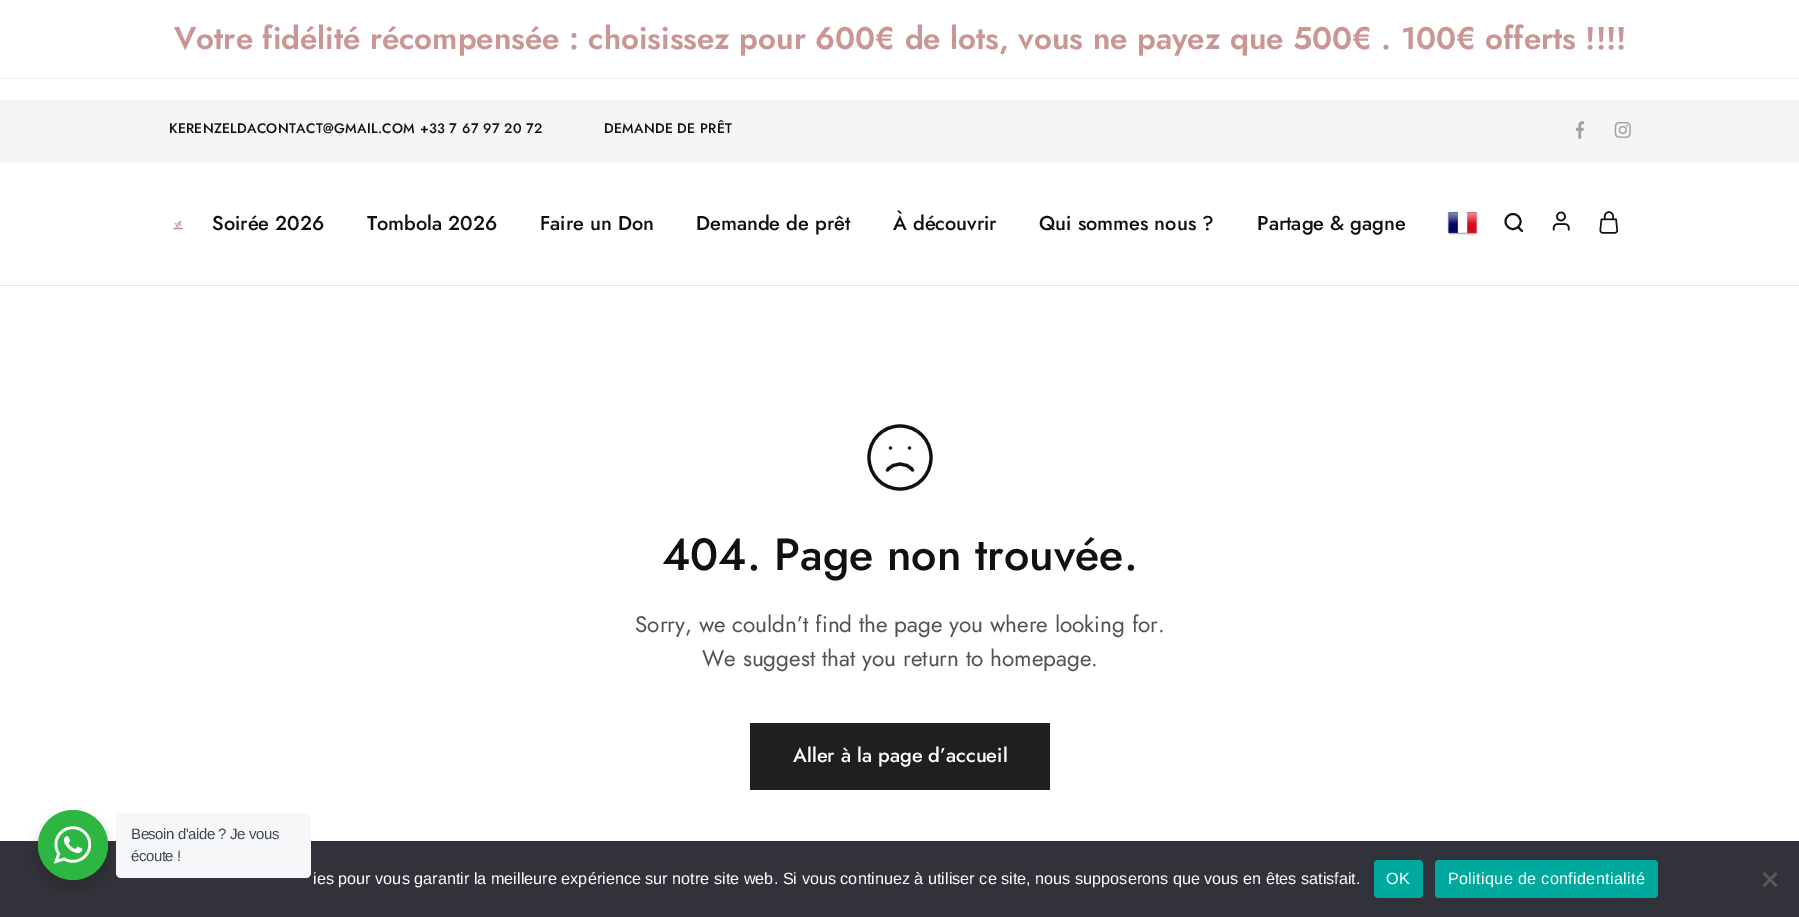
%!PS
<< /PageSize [1799 917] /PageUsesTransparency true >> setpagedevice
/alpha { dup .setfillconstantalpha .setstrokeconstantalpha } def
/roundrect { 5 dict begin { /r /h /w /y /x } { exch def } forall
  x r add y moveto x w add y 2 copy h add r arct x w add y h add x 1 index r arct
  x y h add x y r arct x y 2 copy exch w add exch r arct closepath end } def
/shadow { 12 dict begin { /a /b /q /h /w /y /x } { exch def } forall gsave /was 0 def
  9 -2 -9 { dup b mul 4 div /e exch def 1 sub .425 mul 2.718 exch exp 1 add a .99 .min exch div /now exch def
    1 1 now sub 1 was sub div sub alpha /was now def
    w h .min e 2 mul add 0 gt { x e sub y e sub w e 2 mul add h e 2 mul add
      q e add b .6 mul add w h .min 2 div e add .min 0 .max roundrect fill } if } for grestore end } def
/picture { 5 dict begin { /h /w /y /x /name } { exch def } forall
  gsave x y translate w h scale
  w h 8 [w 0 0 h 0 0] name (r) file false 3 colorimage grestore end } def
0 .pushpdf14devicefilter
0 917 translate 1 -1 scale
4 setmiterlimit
1 setgray
0 0 1799 917 rectfill
0.933 setgray
0 78 1799 1 rectfill
/Jost-SemiBold [31.25 0 0 -31.25 0 0] selectfont
0.788 0.588 0.58 setrgbcolor
174 49 moveto (Votre fidélité récompensée : choisissez pour 600€ de lots, vous ne payez que 500€ . 100€ offerts !!!!) show
0.961 setgray
0 100 1799 63 rectfill
/Jost-Medium [13.75 0 0 -13.75 0 0] selectfont
0.067 setgray
169 133 moveto 0.3 0 (KERENZELDACONTACT@GMAIL.COM +33 7 67 97 20 72) ashow
604 133 moveto 0.3 0 (DEMANDE DE PRÊT) ashow
(img1.rgb) 1575 121 10 18 picture
(img2.rgb) 1614 122 17 16 picture
0.886 setgray
0 285 1799 1 rectfill
(img3.rgb) 173 221 11 9 picture
/Jost-Medium [20 0 0 -20 0 0] selectfont
0.067 setgray
212 230 moveto (Soirée 2026) show
367 230 moveto (Tombola 2026) show
540 230 moveto (Faire un Don) show
696 230 moveto (Demande de prêt) show
893 230 moveto (À découvrir) show
1039 230 moveto (Qui sommes nous ?) show
1257 230 moveto (Partage & gagne) show
(img4.rgb) 1447 211 31 24 picture
1.9 setlinewidth
newpath 1513 221.5 7.5 0 360 arc closepath stroke
1 setlinecap
1 setlinejoin
newpath 1522 231 moveto 1518 227 lineto stroke
(img5.rgb) 1552 211 18 20 picture
(img6.rgb) 1599 211 19 23 picture
3.2 setlinewidth
newpath 912.5 470 moveto 906.5 462 893.5 462 887.5 470 curveto 890.5 448 moveto 890.5 448 lineto 909.5 448 moveto 909.5 448 lineto 931 457.5 moveto 931 475 917.5 489 900 489 curveto 882.5 489 869 475 869 457.5 curveto 869 440 882.5 426 900 426 curveto 917.5 426 931 440 931 457.5 curveto closepath stroke
/Jost-Medium [45 0 0 -45 0 0] selectfont
662 570 moveto (404. Page non trouvée.) show
/Jost-Regular [22.5 0 0 -22.5 0 0] selectfont
0.322 setgray
635 632 moveto (Sorry, we couldn’t find the page you where looking for.) show
702 666 moveto (We suggest that you return to homepage.) show
0.122 setgray
750 723 300 67 rectfill
/Jost-Medium [20 0 0 -20 0 0] selectfont
1 setgray
793 762 moveto (Aller à la page d’accueil) show
0.196 0.196 0.227 setrgbcolor
0 841 1799 76 rectfill
0 setgray
35 815 75 75 37.5 5 0.14 shadow
0.176 0.718 0.259 setrgbcolor
newpath 73 845 35 0 360 arc closepath fill
(img7.rgb) 54 826 37 38 picture
0.961 0.969 0.976 setrgbcolor
116 813 195 65 5 roundrect fill
/LiberationSans-Regular [15 0 0 -15 0 0] selectfont
0.263 0.278 0.306 setrgbcolor
131 839 moveto -0.45 0 (Besoin d'aide ? Je vous) ashow
131 861 moveto -0.45 0 (écoute !) ashow
/LiberationSans-Regular [16.25 0 0 -16.25 0 0] selectfont
1 setgray
313 884 moveto (ies pour vous garantir la meilleure expérience sur notre site web. Si vous continuez à utiliser ce site, nous supposerons que vous en êtes satisfait.) show
0 0.663 0.616 setrgbcolor
1374 860 49 38 4 roundrect fill
1 setgray
1386 884 moveto 0.3 0 (OK) ashow
0 0.663 0.616 setrgbcolor
1435 860 223 38 4 roundrect fill
1 setgray
1448 884 moveto 0.3 0 (Politique de confidentialité) ashow
0.349 0.349 0.365 setrgbcolor
newpath 1775.5 872 moveto 1777.5 874 lineto 1764.5 887 lineto 1762.5 885.5 lineto closepath fill
newpath 1762.5 874 moveto 1764.5 872 lineto 1777.5 885.5 lineto 1775.5 887 lineto closepath fill
.poppdf14devicefilter showpage
